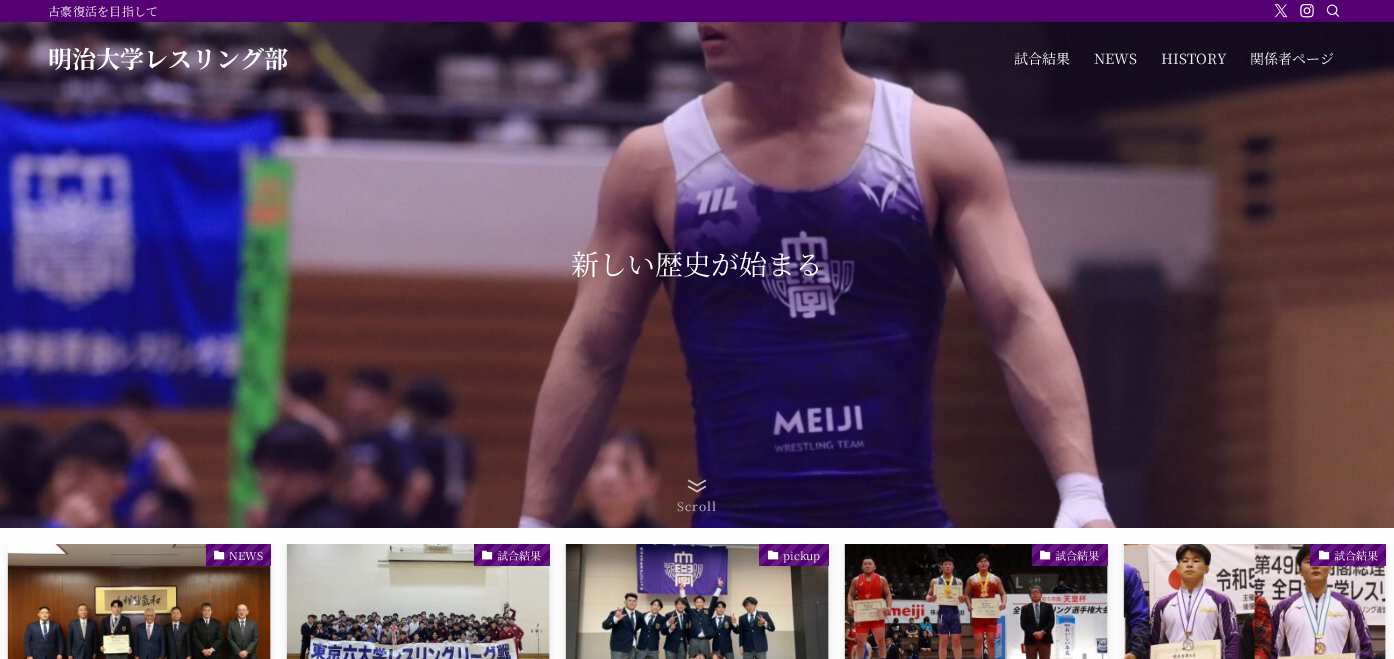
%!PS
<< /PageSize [1394 659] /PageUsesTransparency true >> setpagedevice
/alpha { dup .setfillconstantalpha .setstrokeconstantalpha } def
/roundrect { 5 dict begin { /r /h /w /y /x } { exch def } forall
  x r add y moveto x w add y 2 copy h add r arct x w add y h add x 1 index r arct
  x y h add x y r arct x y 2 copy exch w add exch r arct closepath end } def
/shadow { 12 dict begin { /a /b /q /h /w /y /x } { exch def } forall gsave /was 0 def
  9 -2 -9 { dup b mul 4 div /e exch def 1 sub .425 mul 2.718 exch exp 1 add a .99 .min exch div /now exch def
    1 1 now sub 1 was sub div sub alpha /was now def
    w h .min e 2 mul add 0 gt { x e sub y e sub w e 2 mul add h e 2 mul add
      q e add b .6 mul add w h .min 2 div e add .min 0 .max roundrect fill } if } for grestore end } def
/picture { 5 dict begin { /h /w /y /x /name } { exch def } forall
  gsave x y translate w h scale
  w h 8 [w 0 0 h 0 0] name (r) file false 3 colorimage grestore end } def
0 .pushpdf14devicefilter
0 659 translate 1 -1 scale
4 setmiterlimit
0.992 setgray
0 0 1394 659 rectfill
0.329 0 0.447 setrgbcolor
0 0 1394 22 rectfill
/NotoSerifJP-Regular [12 0 0 -12 0 0] selectfont
1 setgray
48 16 moveto 0.25 0 (古豪復活を目指して) ashow
(img1.rgb) 1274 4 14 14 picture
(img2.rgb) 1300 4 14 14 picture
(img3.rgb) 1326 4 14 13 picture
(img4.rgb) 0 22 1394 506 picture
/NotoSerifJP-Bold [24 0 0 -24 0 0] selectfont
48 68 moveto (明治大学レスリング部) show
/NotoSerifJP-Regular [14 0 0 -14 0 0] selectfont
1014 64 moveto (試合結果) show
1094 64 moveto (NEWS) show
1161 64 moveto (HISTORY) show
1250 64 moveto (関係者ページ) show
/NotoSerifJP-Regular [28 0 0 -28 0 0] selectfont
571 275 moveto (新しい歴史が始まる) show
(img5.rgb) 687 479 20 14 picture
/NotoSerifJP-Regular [12 0 0 -12 0 0] selectfont
0.804 0.776 0.804 setrgbcolor
677 511 moveto 1 0 (Scroll) ashow
gsave
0 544 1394 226 rectclip
0 setgray
8 546 263 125 0 4 0.1 shadow
grestore
(img6.rgb) 7 544 264 115 picture
gsave newpath 206 544 moveto 271 544 lineto 271 566 lineto 206 566 lineto closepath clip newpath
<< /ShadingType 2 /ColorSpace /DeviceRGB /Coords [260 577 209 526] /Extend [true true] /Function << /FunctionType 3 /Domain [0 1] /Functions [<< /FunctionType 2 /Domain [0 1] /C0 [0.396 0.102 0.502] /C1 [0.396 0.102 0.502] /N 1 >> << /FunctionType 2 /Domain [0 1] /C0 [0.329 0 0.447] /C1 [0.329 0 0.447] /N 1 >> << /FunctionType 2 /Domain [0 1] /C0 [0.396 0.102 0.502] /C1 [0.396 0.102 0.502] /N 1 >> << /FunctionType 2 /Domain [0 1] /C0 [0.329 0 0.447] /C1 [0.329 0 0.447] /N 1 >> << /FunctionType 2 /Domain [0 1] /C0 [0.396 0.102 0.502] /C1 [0.396 0.102 0.502] /N 1 >> << /FunctionType 2 /Domain [0 1] /C0 [0.329 0 0.447] /C1 [0.329 0 0.447] /N 1 >> << /FunctionType 2 /Domain [0 1] /C0 [0.396 0.102 0.502] /C1 [0.396 0.102 0.502] /N 1 >> << /FunctionType 2 /Domain [0 1] /C0 [0.329 0 0.447] /C1 [0.329 0 0.447] /N 1 >> << /FunctionType 2 /Domain [0 1] /C0 [0.396 0.102 0.502] /C1 [0.396 0.102 0.502] /N 1 >> << /FunctionType 2 /Domain [0 1] /C0 [0.329 0 0.447] /C1 [0.329 0 0.447] /N 1 >> << /FunctionType 2 /Domain [0 1] /C0 [0.396 0.102 0.502] /C1 [0.396 0.102 0.502] /N 1 >> << /FunctionType 2 /Domain [0 1] /C0 [0.329 0 0.447] /C1 [0.329 0 0.447] /N 1 >>] /Bounds [0.08 0.17 0.25 0.33 0.42 0.5 0.58 0.67 0.75 0.83 0.92] /Encode [0 1 0 1 0 1 0 1 0 1 0 1 0 1 0 1 0 1 0 1 0 1 0 1] >> >> shfill grestore
(img7.rgb) 214 550 11 10 picture
/NotoSerifJP-Regular [11 0 0 -11 0 0] selectfont
1 setgray
229 560 moveto (NEWS) show
gsave
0 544 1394 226 rectclip
0 setgray
287 546 263 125 0 4 0.1 shadow
grestore
(img8.rgb) 286 544 264 115 picture
gsave newpath 474 544 moveto 550 544 lineto 550 566 lineto 474 566 lineto closepath clip newpath
<< /ShadingType 2 /ColorSpace /DeviceRGB /Coords [536 580 485 529] /Extend [true true] /Function << /FunctionType 3 /Domain [0 1] /Functions [<< /FunctionType 2 /Domain [0 1] /C0 [0.396 0.102 0.502] /C1 [0.396 0.102 0.502] /N 1 >> << /FunctionType 2 /Domain [0 1] /C0 [0.329 0 0.447] /C1 [0.329 0 0.447] /N 1 >> << /FunctionType 2 /Domain [0 1] /C0 [0.396 0.102 0.502] /C1 [0.396 0.102 0.502] /N 1 >> << /FunctionType 2 /Domain [0 1] /C0 [0.329 0 0.447] /C1 [0.329 0 0.447] /N 1 >> << /FunctionType 2 /Domain [0 1] /C0 [0.396 0.102 0.502] /C1 [0.396 0.102 0.502] /N 1 >> << /FunctionType 2 /Domain [0 1] /C0 [0.329 0 0.447] /C1 [0.329 0 0.447] /N 1 >> << /FunctionType 2 /Domain [0 1] /C0 [0.396 0.102 0.502] /C1 [0.396 0.102 0.502] /N 1 >> << /FunctionType 2 /Domain [0 1] /C0 [0.329 0 0.447] /C1 [0.329 0 0.447] /N 1 >> << /FunctionType 2 /Domain [0 1] /C0 [0.396 0.102 0.502] /C1 [0.396 0.102 0.502] /N 1 >> << /FunctionType 2 /Domain [0 1] /C0 [0.329 0 0.447] /C1 [0.329 0 0.447] /N 1 >> << /FunctionType 2 /Domain [0 1] /C0 [0.396 0.102 0.502] /C1 [0.396 0.102 0.502] /N 1 >> << /FunctionType 2 /Domain [0 1] /C0 [0.329 0 0.447] /C1 [0.329 0 0.447] /N 1 >>] /Bounds [0.08 0.17 0.25 0.33 0.42 0.5 0.58 0.67 0.75 0.83 0.92] /Encode [0 1 0 1 0 1 0 1 0 1 0 1 0 1 0 1 0 1 0 1 0 1 0 1] >> >> shfill grestore
(img9.rgb) 482 550 11 10 picture
497 560 moveto (試合結果) show
gsave
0 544 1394 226 rectclip
0 setgray
566 546 263 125 0 4 0.1 shadow
grestore
(img10.rgb) 565 544 264 115 picture
gsave newpath 759 544 moveto 829 544 lineto 829 566 lineto 759 566 lineto closepath clip newpath
<< /ShadingType 2 /ColorSpace /DeviceRGB /Coords [817 578 766 527] /Extend [true true] /Function << /FunctionType 3 /Domain [0 1] /Functions [<< /FunctionType 2 /Domain [0 1] /C0 [0.396 0.102 0.502] /C1 [0.396 0.102 0.502] /N 1 >> << /FunctionType 2 /Domain [0 1] /C0 [0.329 0 0.447] /C1 [0.329 0 0.447] /N 1 >> << /FunctionType 2 /Domain [0 1] /C0 [0.396 0.102 0.502] /C1 [0.396 0.102 0.502] /N 1 >> << /FunctionType 2 /Domain [0 1] /C0 [0.329 0 0.447] /C1 [0.329 0 0.447] /N 1 >> << /FunctionType 2 /Domain [0 1] /C0 [0.396 0.102 0.502] /C1 [0.396 0.102 0.502] /N 1 >> << /FunctionType 2 /Domain [0 1] /C0 [0.329 0 0.447] /C1 [0.329 0 0.447] /N 1 >> << /FunctionType 2 /Domain [0 1] /C0 [0.396 0.102 0.502] /C1 [0.396 0.102 0.502] /N 1 >> << /FunctionType 2 /Domain [0 1] /C0 [0.329 0 0.447] /C1 [0.329 0 0.447] /N 1 >> << /FunctionType 2 /Domain [0 1] /C0 [0.396 0.102 0.502] /C1 [0.396 0.102 0.502] /N 1 >> << /FunctionType 2 /Domain [0 1] /C0 [0.329 0 0.447] /C1 [0.329 0 0.447] /N 1 >> << /FunctionType 2 /Domain [0 1] /C0 [0.396 0.102 0.502] /C1 [0.396 0.102 0.502] /N 1 >> << /FunctionType 2 /Domain [0 1] /C0 [0.329 0 0.447] /C1 [0.329 0 0.447] /N 1 >>] /Bounds [0.08 0.17 0.25 0.33 0.42 0.5 0.58 0.67 0.75 0.83 0.92] /Encode [0 1 0 1 0 1 0 1 0 1 0 1 0 1 0 1 0 1 0 1 0 1 0 1] >> >> shfill grestore
(img11.rgb) 768 550 11 10 picture
783 560 moveto (pickup) show
gsave
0 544 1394 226 rectclip
0 setgray
845 546 263 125 0 4 0.1 shadow
grestore
(img12.rgb) 844 544 264 115 picture
gsave newpath 1032 544 moveto 1108 544 lineto 1108 566 lineto 1032 566 lineto closepath clip newpath
<< /ShadingType 2 /ColorSpace /DeviceRGB /Coords [1094 580 1043 529] /Extend [true true] /Function << /FunctionType 3 /Domain [0 1] /Functions [<< /FunctionType 2 /Domain [0 1] /C0 [0.396 0.102 0.502] /C1 [0.396 0.102 0.502] /N 1 >> << /FunctionType 2 /Domain [0 1] /C0 [0.329 0 0.447] /C1 [0.329 0 0.447] /N 1 >> << /FunctionType 2 /Domain [0 1] /C0 [0.396 0.102 0.502] /C1 [0.396 0.102 0.502] /N 1 >> << /FunctionType 2 /Domain [0 1] /C0 [0.329 0 0.447] /C1 [0.329 0 0.447] /N 1 >> << /FunctionType 2 /Domain [0 1] /C0 [0.396 0.102 0.502] /C1 [0.396 0.102 0.502] /N 1 >> << /FunctionType 2 /Domain [0 1] /C0 [0.329 0 0.447] /C1 [0.329 0 0.447] /N 1 >> << /FunctionType 2 /Domain [0 1] /C0 [0.396 0.102 0.502] /C1 [0.396 0.102 0.502] /N 1 >> << /FunctionType 2 /Domain [0 1] /C0 [0.329 0 0.447] /C1 [0.329 0 0.447] /N 1 >> << /FunctionType 2 /Domain [0 1] /C0 [0.396 0.102 0.502] /C1 [0.396 0.102 0.502] /N 1 >> << /FunctionType 2 /Domain [0 1] /C0 [0.329 0 0.447] /C1 [0.329 0 0.447] /N 1 >> << /FunctionType 2 /Domain [0 1] /C0 [0.396 0.102 0.502] /C1 [0.396 0.102 0.502] /N 1 >> << /FunctionType 2 /Domain [0 1] /C0 [0.329 0 0.447] /C1 [0.329 0 0.447] /N 1 >>] /Bounds [0.08 0.17 0.25 0.33 0.42 0.5 0.58 0.67 0.75 0.83 0.92] /Encode [0 1 0 1 0 1 0 1 0 1 0 1 0 1 0 1 0 1 0 1 0 1 0 1] >> >> shfill grestore
(img9.rgb) 1040 550 11 10 picture
1055 560 moveto (試合結果) show
gsave
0 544 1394 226 rectclip
0 setgray
1124 546 262 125 0 4 0.1 shadow
grestore
(img13.rgb) 1123 544 263 115 picture
gsave newpath 1310 544 moveto 1386 544 lineto 1386 566 lineto 1310 566 lineto closepath clip newpath
<< /ShadingType 2 /ColorSpace /DeviceRGB /Coords [1372 580 1321 529] /Extend [true true] /Function << /FunctionType 3 /Domain [0 1] /Functions [<< /FunctionType 2 /Domain [0 1] /C0 [0.396 0.102 0.502] /C1 [0.396 0.102 0.502] /N 1 >> << /FunctionType 2 /Domain [0 1] /C0 [0.329 0 0.447] /C1 [0.329 0 0.447] /N 1 >> << /FunctionType 2 /Domain [0 1] /C0 [0.396 0.102 0.502] /C1 [0.396 0.102 0.502] /N 1 >> << /FunctionType 2 /Domain [0 1] /C0 [0.329 0 0.447] /C1 [0.329 0 0.447] /N 1 >> << /FunctionType 2 /Domain [0 1] /C0 [0.396 0.102 0.502] /C1 [0.396 0.102 0.502] /N 1 >> << /FunctionType 2 /Domain [0 1] /C0 [0.329 0 0.447] /C1 [0.329 0 0.447] /N 1 >> << /FunctionType 2 /Domain [0 1] /C0 [0.396 0.102 0.502] /C1 [0.396 0.102 0.502] /N 1 >> << /FunctionType 2 /Domain [0 1] /C0 [0.329 0 0.447] /C1 [0.329 0 0.447] /N 1 >> << /FunctionType 2 /Domain [0 1] /C0 [0.396 0.102 0.502] /C1 [0.396 0.102 0.502] /N 1 >> << /FunctionType 2 /Domain [0 1] /C0 [0.329 0 0.447] /C1 [0.329 0 0.447] /N 1 >> << /FunctionType 2 /Domain [0 1] /C0 [0.396 0.102 0.502] /C1 [0.396 0.102 0.502] /N 1 >> << /FunctionType 2 /Domain [0 1] /C0 [0.329 0 0.447] /C1 [0.329 0 0.447] /N 1 >>] /Bounds [0.08 0.17 0.25 0.33 0.42 0.5 0.58 0.67 0.75 0.83 0.92] /Encode [0 1 0 1 0 1 0 1 0 1 0 1 0 1 0 1 0 1 0 1 0 1 0 1] >> >> shfill grestore
(img14.rgb) 1319 550 11 10 picture
1334 560 moveto (試合結果) show
.poppdf14devicefilter showpage
